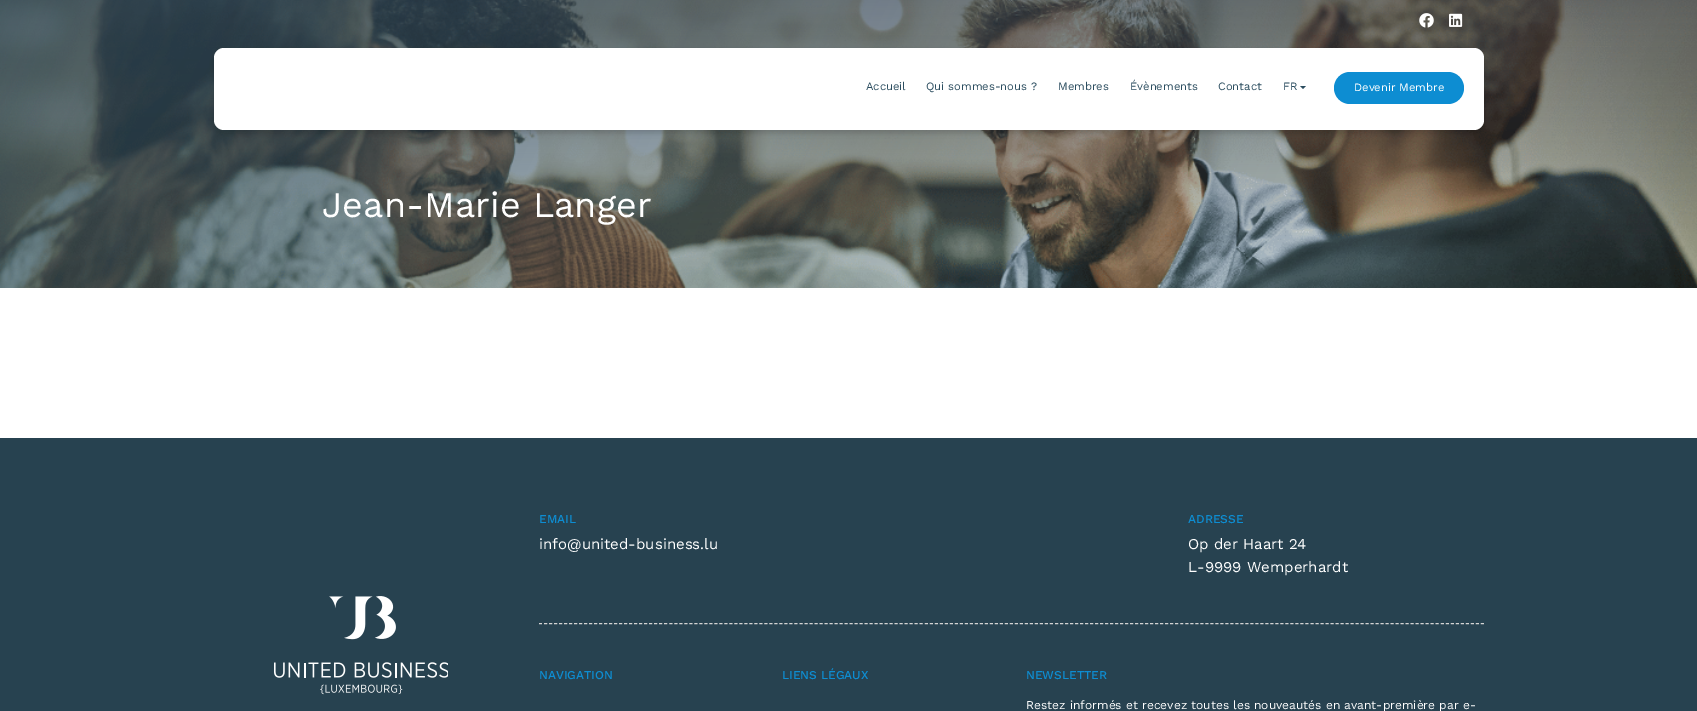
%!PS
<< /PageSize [1697 711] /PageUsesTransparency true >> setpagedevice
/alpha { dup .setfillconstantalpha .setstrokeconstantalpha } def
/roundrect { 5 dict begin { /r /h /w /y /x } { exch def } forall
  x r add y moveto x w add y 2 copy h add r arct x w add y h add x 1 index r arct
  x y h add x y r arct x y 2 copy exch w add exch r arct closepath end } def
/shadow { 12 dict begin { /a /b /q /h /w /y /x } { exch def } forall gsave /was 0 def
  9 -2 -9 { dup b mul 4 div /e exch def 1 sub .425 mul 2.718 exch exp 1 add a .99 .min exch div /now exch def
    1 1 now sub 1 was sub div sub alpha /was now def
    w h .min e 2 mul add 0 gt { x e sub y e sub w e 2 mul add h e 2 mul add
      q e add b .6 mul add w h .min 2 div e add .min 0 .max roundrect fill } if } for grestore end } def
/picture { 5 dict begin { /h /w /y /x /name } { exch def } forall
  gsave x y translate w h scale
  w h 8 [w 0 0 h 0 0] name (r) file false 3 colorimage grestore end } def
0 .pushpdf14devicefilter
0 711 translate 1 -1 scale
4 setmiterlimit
1 setgray
0 0 1697 711 rectfill
(img3.rgb) 0 0 1697 288 picture
(img1.rgb) 1419 13 15 15 picture
(img2.rgb) 1449 13 14 14 picture
0 setgray
214 51 1270 82 10 3 0.16 shadow
1 setgray
214 48 1270 82 10 roundrect fill
/WorkSans-Regular [11.25 0 0 -11.25 0 0] selectfont
0.169 0.302 0.373 setrgbcolor
866 90 moveto (Accueil) show
926 90 moveto (Qui sommes-nous ?) show
1058 90 moveto (Membres) show
1130 90 moveto (Évènements) show
1218 90 moveto (Contact) show
1283 90 moveto (FR) show
newpath 1300 86 moveto 1306 86 lineto 1303 89 lineto closepath fill
0.051 0.553 0.824 setrgbcolor
1334 72 130 32 16 roundrect fill
1 setgray
1354 91 moveto (Devenir Membre) show
/WorkSans-Regular [36 0 0 -36 0 0] selectfont
322 217 moveto (Jean-Marie Langer) show
0.153 0.259 0.314 setrgbcolor
0 438 1697 273 rectfill
(img4.rgb) 274 596 174 99 picture
/WorkSans-Medium [12 0 0 -12 0 0] selectfont
0.051 0.553 0.824 setrgbcolor
539 523 moveto (EMAIL) show
/WorkSans-Regular [15 0 0 -15 0 0] selectfont
1 setgray
539 549 moveto (info@united-business.lu) show
/WorkSans-Medium [12 0 0 -12 0 0] selectfont
0.051 0.553 0.824 setrgbcolor
1188 523 moveto (ADRESSE) show
/WorkSans-Regular [15 0 0 -15 0 0] selectfont
1 setgray
1188 549 moveto (Op der Haart 24) show
1188 572 moveto (L-9999 Wemperhardt) show
0.827 setgray
[3 2.01] 0 setdash
newpath 539 623.5 moveto 1484 623.5 lineto stroke
/WorkSans-Medium [12 0 0 -12 0 0] selectfont
0.051 0.553 0.824 setrgbcolor
539 679 moveto (NAVIGATION) show
782 679 moveto (LIENS LÉGAUX) show
1026 679 moveto (NEWSLETTER) show
/WorkSans-Regular [12 0 0 -12 0 0] selectfont
1 setgray
1026 709 moveto (Restez informés et recevez toutes les nouveautés en avant-première par e-) show
.poppdf14devicefilter showpage
